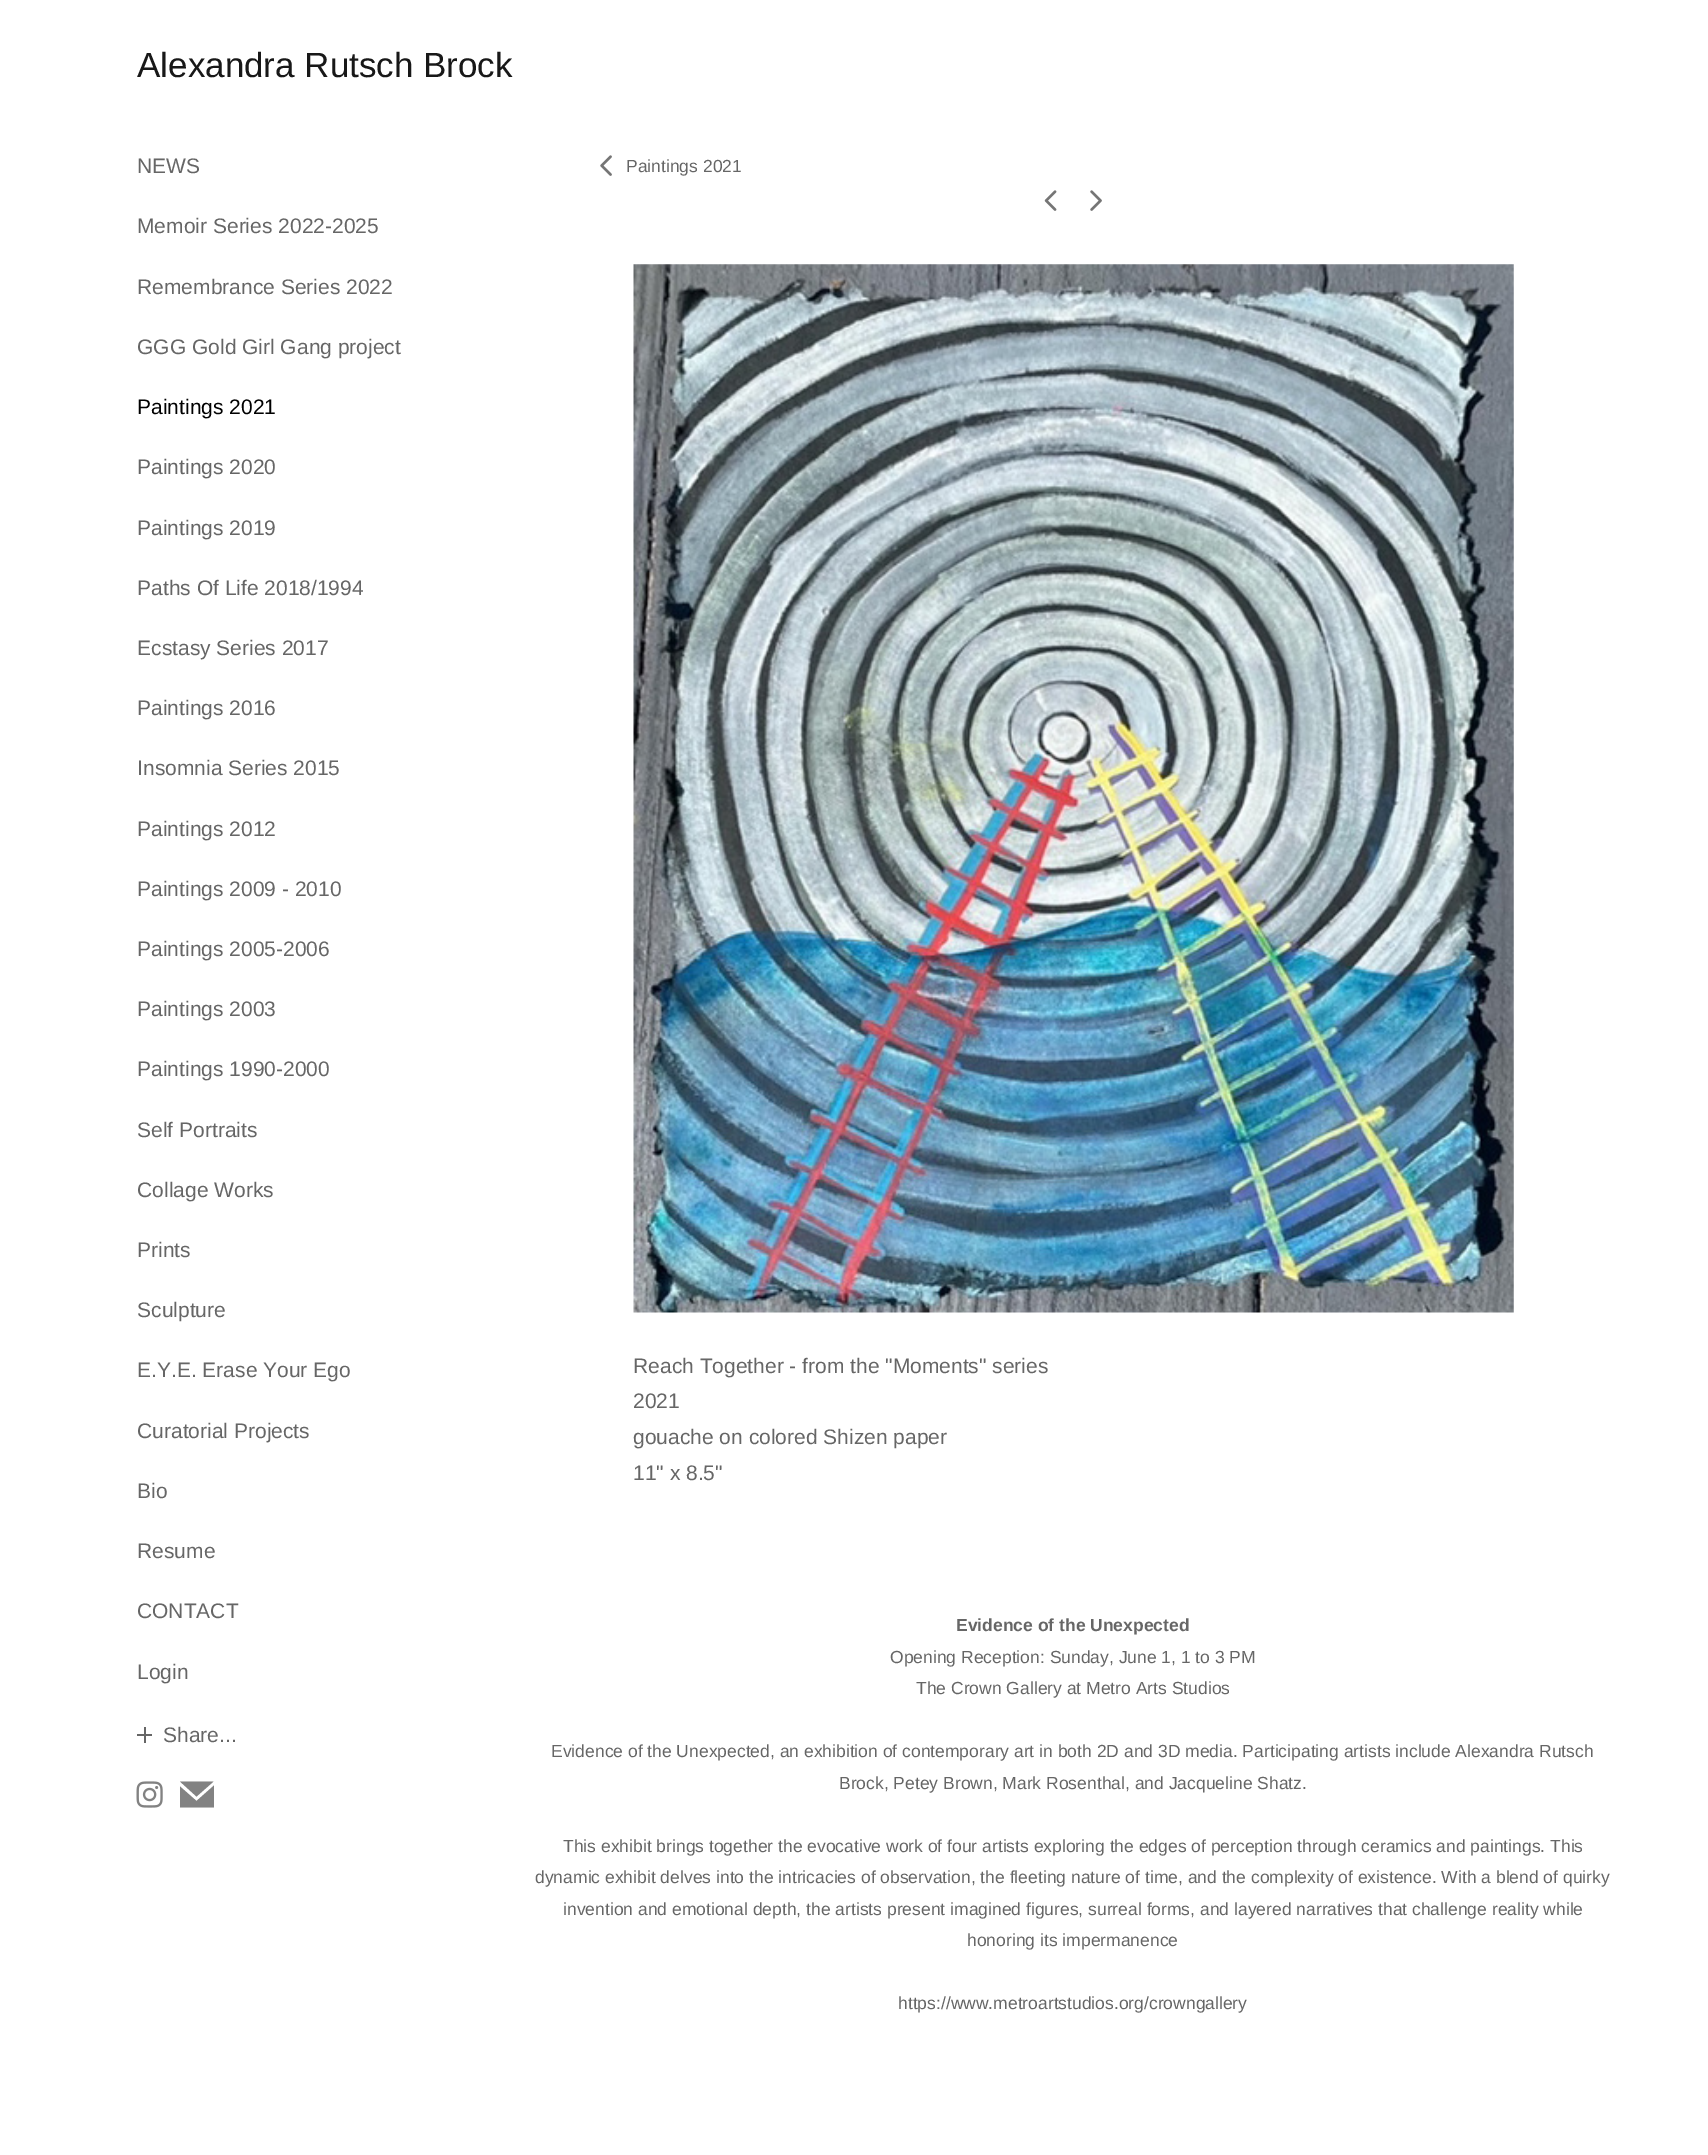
%!PS
<< /PageSize [1708 2155] >> setpagedevice
/picture { 5 dict begin { /h /w /y /x /name } { exch def } forall
  gsave x y translate w h scale
  w h 8 [w 0 0 h 0 0] name (r) file false 3 colorimage grestore end } def
0 2155 translate 1 -1 scale
4 setmiterlimit
1 setgray
0 0 1708 2155 rectfill
/LiberationSans-Regular [35 0 0 -35 0 0] selectfont
0.094 setgray
137 77 moveto (Alexandra Rutsch Brock) show
/LiberationSans-Regular [21 0 0 -21 0 0] selectfont
0.4 setgray
137 173 moveto (NEWS) show
137 233 moveto (Memoir Series 2022-2025) show
137 294 moveto (Remembrance Series 2022) show
137 354 moveto (GGG Gold Girl Gang project) show
0 setgray
137 414 moveto (Paintings 2021) show
0.4 setgray
137 474 moveto (Paintings 2020) show
137 535 moveto (Paintings 2019) show
137 595 moveto (Paths Of Life 2018/1994) show
137 655 moveto (Ecstasy Series 2017) show
137 715 moveto (Paintings 2016) show
137 775 moveto (Insomnia Series 2015) show
137 836 moveto (Paintings 2012) show
137 896 moveto (Paintings 2009 - 2010) show
137 956 moveto (Paintings 2005-2006) show
137 1016 moveto (Paintings 2003) show
137 1076 moveto (Paintings 1990-2000) show
137 1137 moveto (Self Portraits) show
137 1197 moveto (Collage Works) show
137 1257 moveto (Prints) show
137 1317 moveto (Sculpture) show
137 1377 moveto (E.Y.E. Erase Your Ego) show
137 1438 moveto (Curatorial Projects) show
137 1498 moveto (Bio) show
137 1558 moveto (Resume) show
137 1618 moveto (CONTACT) show
137 1679 moveto (Login) show
144 1727 2 16 rectfill
137 1734 15 2 rectfill
163 1742 moveto (Share...) show
(img1.rgb) 136 1781 27 27 picture
0.51 setgray
newpath 213.5 1781.5 moveto 180 1781.5 lineto 196.5 1796.5 lineto closepath 196.5 1801 moveto 180 1786.5 lineto 180 1807.5 lineto 214 1807.5 lineto 214 1785.5 lineto closepath fill
(img2.rgb) 600 155 12 21 picture
/LiberationSans-Regular [17.5 0 0 -17.5 0 0] selectfont
0.4 setgray
626 172 moveto (Paintings 2021) show
(img3.rgb) 1044 190 13 21 picture
(img4.rgb) 1090 190 12 21 picture
(img5.rgb) 633 264 881 1049 picture
/LiberationSans-Regular [21 0 0 -21 0 0] selectfont
633 1373 moveto (Reach Together - from the "Moments" series) show
633 1408 moveto (2021) show
633 1444 moveto (gouache on colored Shizen paper) show
633 1480 moveto (11" x 8.5") show
/LiberationSans-Bold [17.5 0 0 -17.5 0 0] selectfont
956 1631 moveto (Evidence of the Unexpected) show
/LiberationSans-Regular [17.5 0 0 -17.5 0 0] selectfont
890 1663 moveto (Opening Reception: Sunday, June 1, 1 to 3 PM) show
916 1694 moveto (The Crown Gallery at Metro Arts Studios) show
551 1757 moveto (Evidence of the Unexpected, an exhibition of contemporary art in both 2D and 3D media. Participating artists include Alexandra Rutsch) show
839 1789 moveto (Brock, Petey Brown, Mark Rosenthal, and Jacqueline Shatz.) show
563 1852 moveto (This exhibit brings together the evocative work of four artists exploring the edges of perception through ceramics and paintings. This) show
535 1883 moveto (dynamic exhibit delves into the intricacies of observation, the fleeting nature of time, and the complexity of existence. With a blend of quirky) show
563 1915 moveto (invention and emotional depth, the artists present imagined figures, surreal forms, and layered narratives that challenge reality while) show
967 1946 moveto (honoring its impermanence) show
898 2009 moveto (https://www.metroartstudios.org/crowngallery) show
showpage
